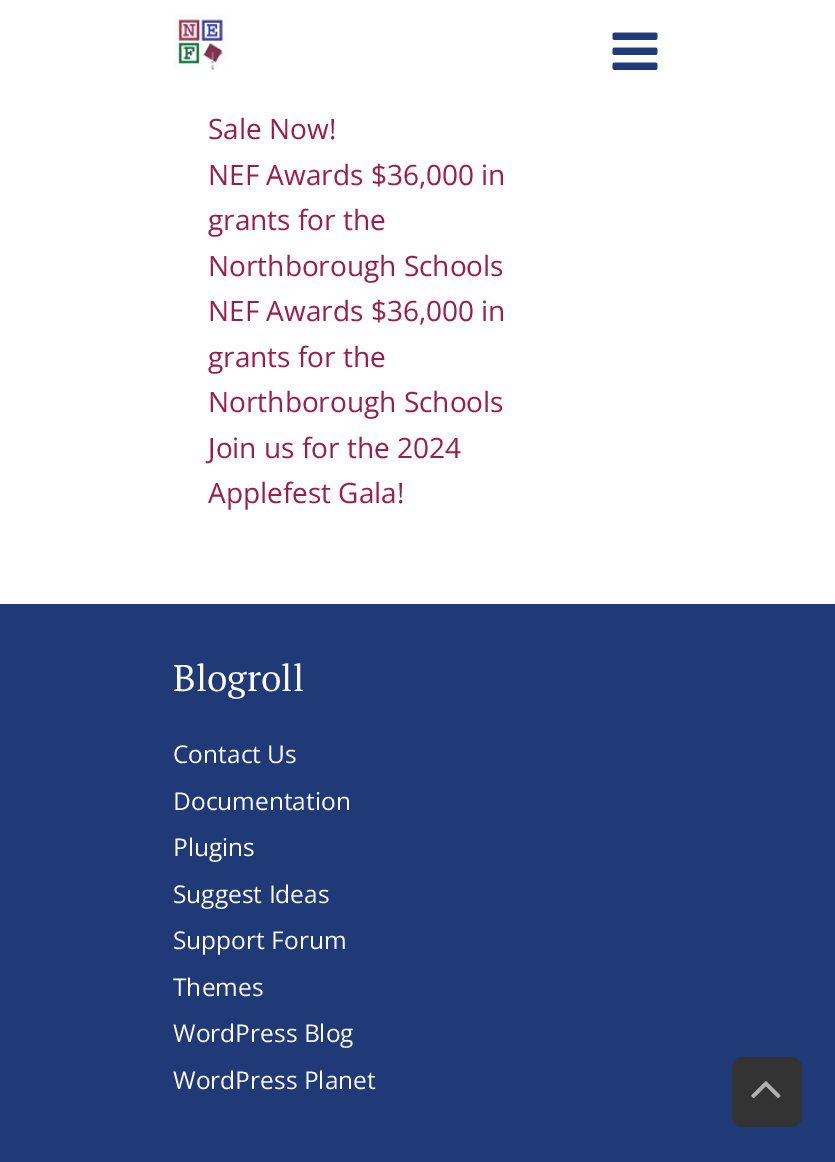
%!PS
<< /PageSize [835 1162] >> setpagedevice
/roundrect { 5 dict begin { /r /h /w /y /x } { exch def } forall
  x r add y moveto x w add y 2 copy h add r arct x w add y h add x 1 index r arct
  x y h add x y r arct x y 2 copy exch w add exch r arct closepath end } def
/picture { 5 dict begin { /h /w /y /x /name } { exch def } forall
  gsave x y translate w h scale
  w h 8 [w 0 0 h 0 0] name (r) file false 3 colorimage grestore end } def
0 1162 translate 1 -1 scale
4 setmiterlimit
1 setgray
0 0 835 1162 rectfill
(img1.rgb) 173 14 55 56 picture
(img2.rgb) 612 32 46 38 picture
/OpenSans-Regular [28 0 0 -28 0 0] selectfont
0.616 0.11 0.302 setrgbcolor
208 139 moveto (Sale Now!) show
208 185 moveto (NEF Awards $36,000 in) show
208 230 moveto (grants for the) show
208 276 moveto (Northborough Schools) show
208 321 moveto (NEF Awards $36,000 in) show
208 367 moveto (grants for the) show
208 412 moveto (Northborough Schools) show
208 458 moveto (Join us for the 2024) show
208 503 moveto (Applefest Gala!) show
0.125 0.224 0.467 setrgbcolor
0 604 835 558 rectfill
/PTSerif-Regular [37 0 0 -37 0 0] selectfont
0.976 setgray
173 691 moveto (Blogroll) show
/OpenSans-Regular [24.5 0 0 -24.5 0 0] selectfont
173 763 moveto (Contact Us) show
173 810 moveto (Documentation) show
173 856 moveto (Plugins) show
173 903 moveto (Suggest Ideas) show
173 949 moveto (Support Forum) show
173 996 moveto (Themes) show
173 1042 moveto (WordPress Blog) show
173 1089 moveto (WordPress Planet) show
0.2 setgray
732 1057 70 70 11 roundrect fill
(img3.rgb) 751 1081 30 18 picture
showpage
